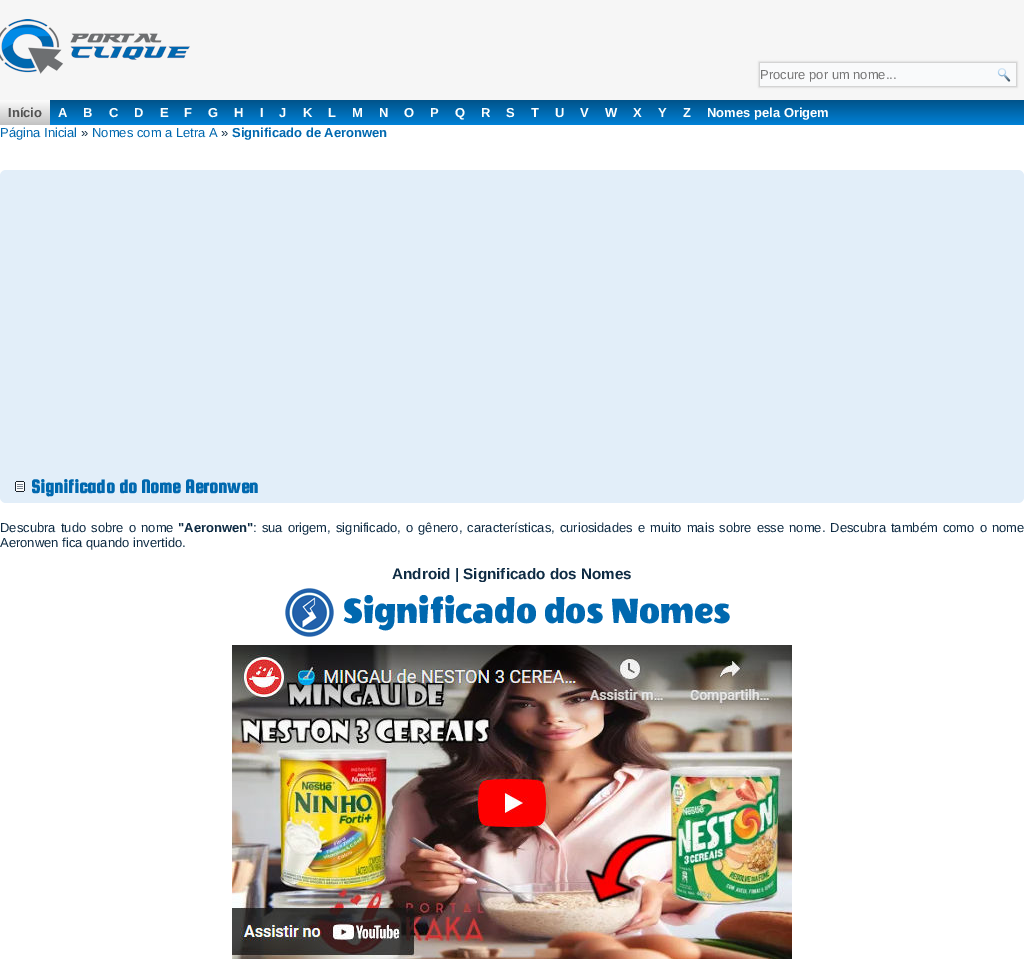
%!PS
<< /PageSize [1024 959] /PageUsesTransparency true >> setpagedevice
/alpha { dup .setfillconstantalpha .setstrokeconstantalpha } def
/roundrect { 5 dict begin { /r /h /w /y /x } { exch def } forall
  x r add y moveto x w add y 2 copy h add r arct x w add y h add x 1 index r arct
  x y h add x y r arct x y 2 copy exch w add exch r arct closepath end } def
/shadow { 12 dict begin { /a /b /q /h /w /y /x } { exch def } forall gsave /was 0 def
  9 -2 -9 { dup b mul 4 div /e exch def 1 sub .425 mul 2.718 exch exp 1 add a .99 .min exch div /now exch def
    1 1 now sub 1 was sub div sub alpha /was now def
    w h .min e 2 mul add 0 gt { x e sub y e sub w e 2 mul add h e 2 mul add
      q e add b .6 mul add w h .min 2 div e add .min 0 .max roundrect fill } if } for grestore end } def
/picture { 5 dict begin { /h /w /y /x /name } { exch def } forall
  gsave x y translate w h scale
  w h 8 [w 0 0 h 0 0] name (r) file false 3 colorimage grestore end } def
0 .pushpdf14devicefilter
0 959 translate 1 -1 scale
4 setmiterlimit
1 setgray
0 0 1024 959 rectfill
0.965 setgray
0 0 1024 100 rectfill
(img1.rgb) 0 19 190 55 picture
0 setgray
759 62 258 25 0 1 0.2 shadow
0.976 0.98 0.984 setrgbcolor
760 63 256 23 rectfill
/LiberationSans-Regular [13 0 0 -13 0 0] selectfont
0.459 setgray
760 79 moveto (Procure por um nome...) show
(img2.rgb) 997 68 14 14 picture
gsave newpath 50 100 moveto 1024 100 lineto 1024 125 lineto 50 125 lineto closepath clip newpath
<< /ShadingType 2 /ColorSpace /DeviceRGB /Coords [512 100 512 125] /Extend [true true] /Function << /FunctionType 2 /Domain [0 1] /C0 [0 0.325 0.541] /C1 [0 0.506 0.839] /N 1 >> >> shfill grestore
gsave newpath 0 100 moveto 50 100 lineto 50 125 lineto 0 125 lineto closepath clip newpath
<< /ShadingType 2 /ColorSpace /DeviceRGB /Coords [25 100 25 125] /Extend [true true] /Function << /FunctionType 2 /Domain [0 1] /C0 [0.988 0.988 0.988] /C1 [0.761 0.761 0.761] /N 1 >> >> shfill grestore
/LiberationSans-Bold [13 0 0 -13 0 0] selectfont
0.322 setgray
8 117 moveto (Início) show
1 setgray
58 117 moveto (A) show
83 117 moveto (B) show
109 117 moveto (C) show
134 117 moveto (D) show
160 117 moveto (E) show
184 117 moveto (F) show
208 117 moveto (G) show
234 117 moveto (H) show
260 117 moveto (I) show
279 117 moveto (J) show
303 117 moveto (K) show
328 117 moveto (L) show
352 117 moveto (M) show
379 117 moveto (N) show
404 117 moveto (O) show
430 117 moveto (P) show
455 117 moveto (Q) show
481 117 moveto (R) show
506 117 moveto (S) show
531 117 moveto (T) show
555 117 moveto (U) show
580 117 moveto (V) show
605 117 moveto (W) show
633 117 moveto (X) show
658 117 moveto (Y) show
683 117 moveto (Z) show
707 117 moveto (Nomes pela Origem) show
/LiberationSans-Regular [13 0 0 -13 0 0] selectfont
0 0.408 0.686 setrgbcolor
0 137 moveto (Página Inicial) show
0.055 0.169 0.263 setrgbcolor
81 137 moveto (») show
0 0.408 0.686 setrgbcolor
92 137 moveto (Nomes com a Letra A) show
0.055 0.169 0.263 setrgbcolor
221 137 moveto (») show
/LiberationSans-Bold [13 0 0 -13 0 0] selectfont
0 0.408 0.686 setrgbcolor
232 137 moveto (Significado de Aeronwen) show
0.886 0.933 0.976 setrgbcolor
0 170 1024 333 6 roundrect fill
(img3.rgb) 15 481 10 11 picture
/SquadaOne-Bold [20 0 0 -20 0 0] selectfont
0 0.408 0.686 setrgbcolor
31 493 moveto (Significado do Nome Aeronwen) show
/LiberationSans-Regular [13 0 0 -13 0 0] selectfont
0.055 0.169 0.263 setrgbcolor
0 532 moveto 1.5 0 32 (Descubra tudo sobre o nome) widthshow
/LiberationSans-Bold [13 0 0 -13 0 0] selectfont
178 532 moveto ("Aeronwen") show
/LiberationSans-Regular [13 0 0 -13 0 0] selectfont
253 532 moveto 1.4 0 32 (: sua origem, significado, o gênero, características, curiosidades e muito mais sobre esse nome. Descubra também como o nome) widthshow
0 547 moveto (Aeronwen fica quando invertido.) show
/LiberationSans-Bold [15.25 0 0 -15.25 0 0] selectfont
392 579 moveto (Android | Significado dos Nomes) show
(img4.rgb) 285 582 445 55 picture
(img5.rgb) 232 645 560 314 picture
.poppdf14devicefilter showpage
